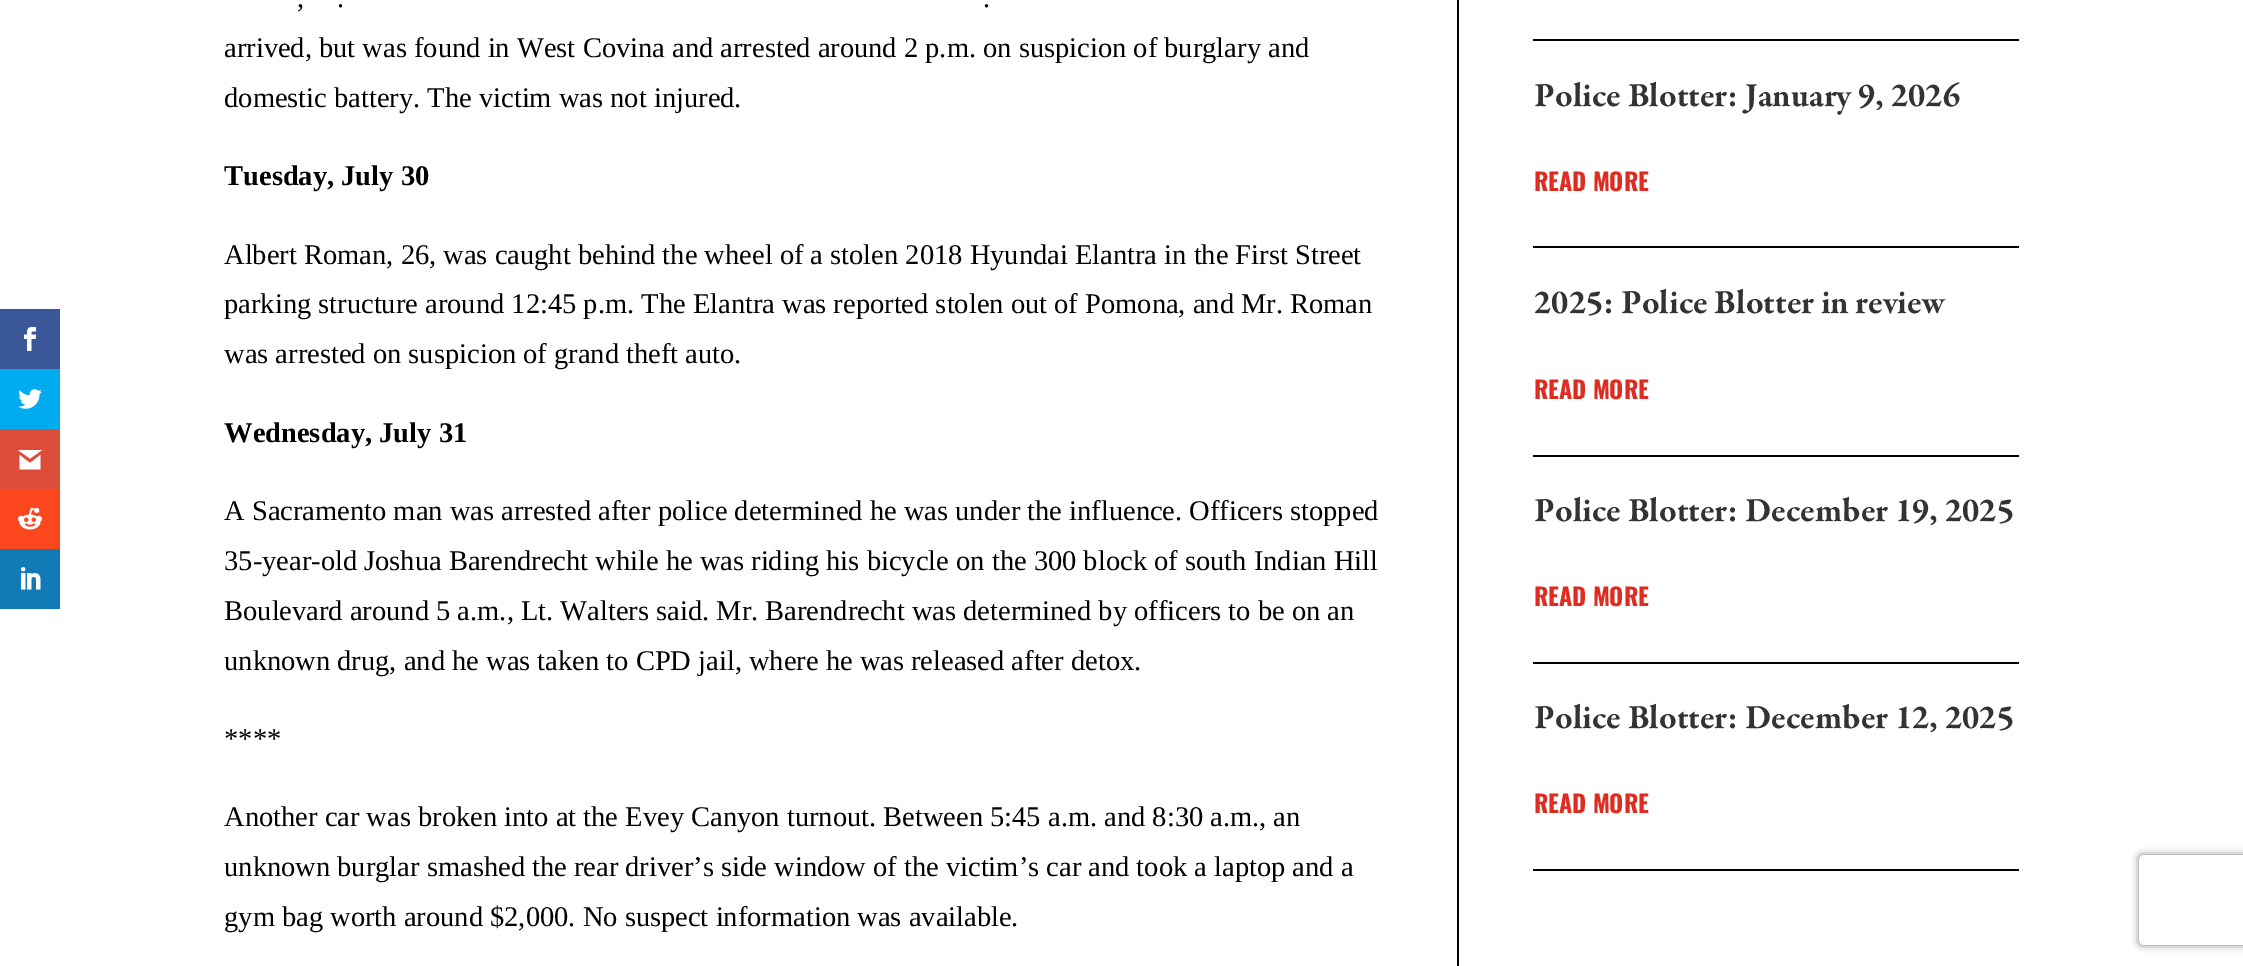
%!PS
<< /PageSize [2243 966] /PageUsesTransparency true >> setpagedevice
/alpha { dup .setfillconstantalpha .setstrokeconstantalpha } def
/roundrect { 5 dict begin { /r /h /w /y /x } { exch def } forall
  x r add y moveto x w add y 2 copy h add r arct x w add y h add x 1 index r arct
  x y h add x y r arct x y 2 copy exch w add exch r arct closepath end } def
/shadow { 12 dict begin { /a /b /q /h /w /y /x } { exch def } forall gsave /was 0 def
  9 -2 -9 { dup b mul 4 div /e exch def 1 sub .425 mul 2.718 exch exp 1 add a .99 .min exch div /now exch def
    1 1 now sub 1 was sub div sub alpha /was now def
    w h .min e 2 mul add 0 gt { x e sub y e sub w e 2 mul add h e 2 mul add
      q e add b .6 mul add w h .min 2 div e add .min 0 .max roundrect fill } if } for grestore end } def
/picture { 5 dict begin { /h /w /y /x /name } { exch def } forall
  gsave x y translate w h scale
  w h 8 [w 0 0 h 0 0] name (r) file false 3 colorimage grestore end } def
0 .pushpdf14devicefilter
0 966 translate 1 -1 scale
4 setmiterlimit
1 setgray
0 0 2243 966 rectfill
0.227 0.341 0.604 setrgbcolor
0 309 60 60 rectfill
(img1.rgb) 24 327 12 24 picture
0 0.671 0.941 setrgbcolor
0 369 60 60 rectfill
(img2.rgb) 18 389 24 20 picture
0.867 0.294 0.224 setrgbcolor
0 429 60 60 rectfill
1 setgray
newpath 42 450 moveto 18 450 lineto 30 458.5 lineto closepath 30 463 moveto 19.5 455 lineto 19.5 469.5 lineto 40.5 469.5 lineto 40.5 455 lineto closepath fill
0.988 0.275 0.118 setrgbcolor
0 489 60 60 rectfill
(img3.rgb) 18 507 24 23 picture
0.071 0.482 0.714 setrgbcolor
0 549 60 60 rectfill
(img4.rgb) 21 567 20 23 picture
/LiberationSerif-Regular [28.5 0 0 -28.5 0 0] selectfont
0 setgray
297 7 moveto (,) show
337 7 moveto (.) show
983 7 moveto (.) show
224 57 moveto (arrived, but was found in West Covina and arrested around 2 p.m. on suspicion of burglary and) show
224 107 moveto (domestic battery. The victim was not injured.) show
/LiberationSerif-Bold [28.5 0 0 -28.5 0 0] selectfont
224 185 moveto (Tuesday, July 30) show
/LiberationSerif-Regular [28.5 0 0 -28.5 0 0] selectfont
224 264 moveto (Albert Roman, 26, was caught behind the wheel of a stolen 2018 Hyundai Elantra in the First Street) show
224 313 moveto (parking structure around 12:45 p.m. The Elantra was reported stolen out of Pomona, and Mr. Roman) show
224 363 moveto (was arrested on suspicion of grand theft auto.) show
/LiberationSerif-Bold [28.5 0 0 -28.5 0 0] selectfont
224 442 moveto (Wednesday, July 31) show
/LiberationSerif-Regular [28.5 0 0 -28.5 0 0] selectfont
224 520 moveto (A Sacramento man was arrested after police determined he was under the influence. Officers stopped) show
224 570 moveto (35-year-old Joshua Barendrecht while he was riding his bicycle on the 300 block of south Indian Hill) show
224 620 moveto (Boulevard around 5 a.m., Lt. Walters said. Mr. Barendrecht was determined by officers to be on an) show
224 670 moveto (unknown drug, and he was taken to CPD jail, where he was released after detox.) show
224 748 moveto (****) show
224 826 moveto (Another car was broken into at the Evey Canyon turnout. Between 5:45 a.m. and 8:30 a.m., an) show
224 876 moveto (unknown burglar smashed the rear driver’s side window of the victim’s car and took a laptop and a) show
224 926 moveto (gym bag worth around $2,000. No suspect information was available.) show
1457 0 2 966 rectfill
1533 39 486 2 rectfill
/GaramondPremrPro-Bold [34.5 0 0 -34.5 0 0] selectfont
0.2 setgray
1534 106 moveto (Police Blotter: January 9, 2026) show
/Oswald-Bold [24 0 0 -24 0 0] selectfont
0.878 0.169 0.125 setrgbcolor
1534 191 moveto (READ MORE) show
0 setgray
1533 246 486 2 rectfill
/GaramondPremrPro-Bold [34.5 0 0 -34.5 0 0] selectfont
0.2 setgray
1534 313 moveto (2025: Police Blotter in review) show
/Oswald-Bold [24 0 0 -24 0 0] selectfont
0.878 0.169 0.125 setrgbcolor
1534 399 moveto (READ MORE) show
0 setgray
1533 455 486 2 rectfill
/GaramondPremrPro-Bold [34.5 0 0 -34.5 0 0] selectfont
0.2 setgray
1534 521 moveto (Police Blotter: December 19, 2025) show
/Oswald-Bold [24 0 0 -24 0 0] selectfont
0.878 0.169 0.125 setrgbcolor
1534 606 moveto (READ MORE) show
0 setgray
1533 662 486 2 rectfill
/GaramondPremrPro-Bold [34.5 0 0 -34.5 0 0] selectfont
0.2 setgray
1534 728 moveto (Police Blotter: December 12, 2025) show
/Oswald-Bold [24 0 0 -24 0 0] selectfont
0.878 0.169 0.125 setrgbcolor
1534 813 moveto (READ MORE) show
0 setgray
1533 869 486 2 rectfill
gsave
newpath 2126 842 moveto 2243 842 lineto 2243 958 lineto 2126 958 lineto closepath 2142 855 moveto 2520 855 lineto 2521.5 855 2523 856.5 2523 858 curveto 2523 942 lineto 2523 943.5 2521.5 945 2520 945 curveto 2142 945 lineto 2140.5 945 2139 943.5 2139 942 curveto 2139 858 lineto 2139 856.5 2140.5 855 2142 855 curveto closepath eoclip newpath
0.502 setgray
2139 855 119 90 3 4 1 shadow
grestore
.poppdf14devicefilter showpage
